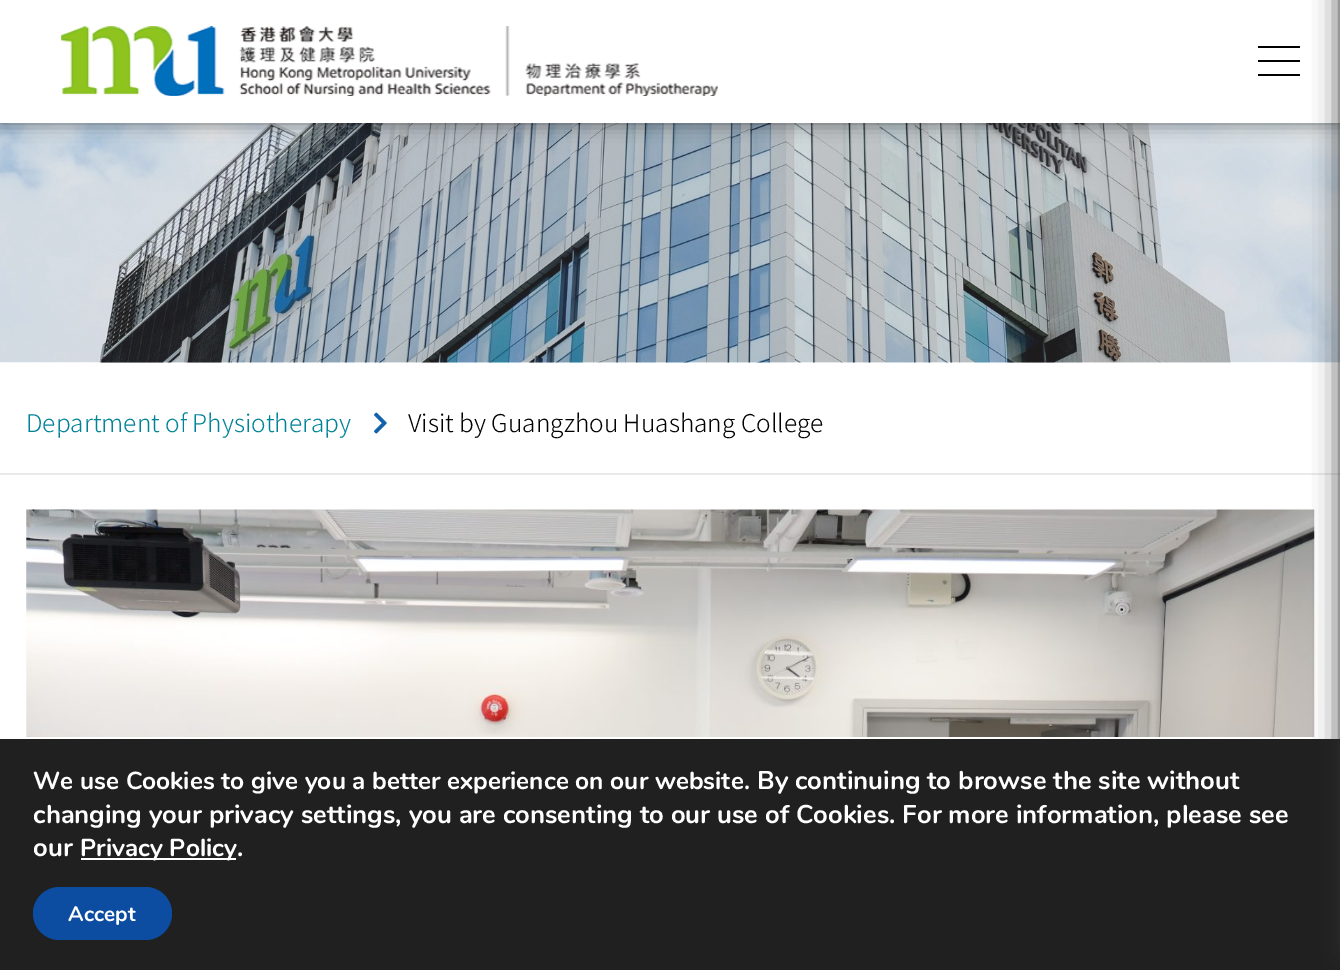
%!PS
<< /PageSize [1340 970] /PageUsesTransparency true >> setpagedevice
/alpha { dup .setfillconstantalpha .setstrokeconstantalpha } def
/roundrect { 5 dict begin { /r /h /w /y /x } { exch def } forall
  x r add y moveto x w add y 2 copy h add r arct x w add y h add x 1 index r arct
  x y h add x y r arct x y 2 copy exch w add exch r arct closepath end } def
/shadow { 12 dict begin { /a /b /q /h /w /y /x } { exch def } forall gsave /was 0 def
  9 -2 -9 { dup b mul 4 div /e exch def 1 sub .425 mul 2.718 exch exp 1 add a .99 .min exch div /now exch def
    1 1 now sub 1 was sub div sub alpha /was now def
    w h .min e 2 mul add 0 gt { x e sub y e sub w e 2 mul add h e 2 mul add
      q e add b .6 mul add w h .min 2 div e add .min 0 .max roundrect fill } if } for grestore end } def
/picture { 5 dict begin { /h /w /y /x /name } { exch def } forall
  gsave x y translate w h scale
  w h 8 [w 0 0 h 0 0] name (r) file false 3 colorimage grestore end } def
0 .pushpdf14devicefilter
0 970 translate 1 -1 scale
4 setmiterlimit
1 setgray
0 0 1340 970 rectfill
(img2.rgb) 0 123 1340 240 picture
0 setgray
0 0 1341 123 0 9 0.5 shadow
1 setgray
0 0 1340 123 rectfill
(img1.rgb) 61 26 657 70 picture
0 setgray
1258 60 42 2 rectfill
1258 46 42 2 rectfill
1258 74 42 2 rectfill
0.918 setgray
0 473 1340 2 rectfill
(img4.rgb) 26 509 1289 228 picture
0.125 setgray
0 739 1340 231 rectfill
0.176 setgray
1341 -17 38 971 0 13 1 shadow
/NotoSansTC-Light [24.5 0 0 -24.5 0 0] selectfont
0 0.51 0.592 setrgbcolor
26 432 moveto (Department of Physiotherapy) show
(img3.rgb) 374 412 13 22 picture
0 setgray
408 432 moveto (Visit by Guangzhou Huashang College) show
/Nunito-Bold [24.5 0 0 -24.5 0 0] selectfont
1 setgray
33 789 moveto (We use Cookies to give you a better experience on our website.) show
/Nunito-Bold [25.65 0 0 -25.65 0 0] selectfont
757 789 moveto (By continuing to browse the site without) show
33 823 moveto (changing your privacy settings, you are consenting to our use of Cookies. For more information, please see) show
33 856 moveto (our) show
81 858 155 2 rectfill
/Nunito-Bold [24.5 0 0 -24.5 0 0] selectfont
80 856 moveto (Privacy Policy) show
/Nunito-Bold [25.65 0 0 -25.65 0 0] selectfont
237 856 moveto (.) show
0.047 0.302 0.635 setrgbcolor
33 887 139 53 26.5 roundrect fill
/Nunito-Bold [21 0 0 -21 0 0] selectfont
1 setgray
68 921 moveto (Accept) show
.poppdf14devicefilter showpage
